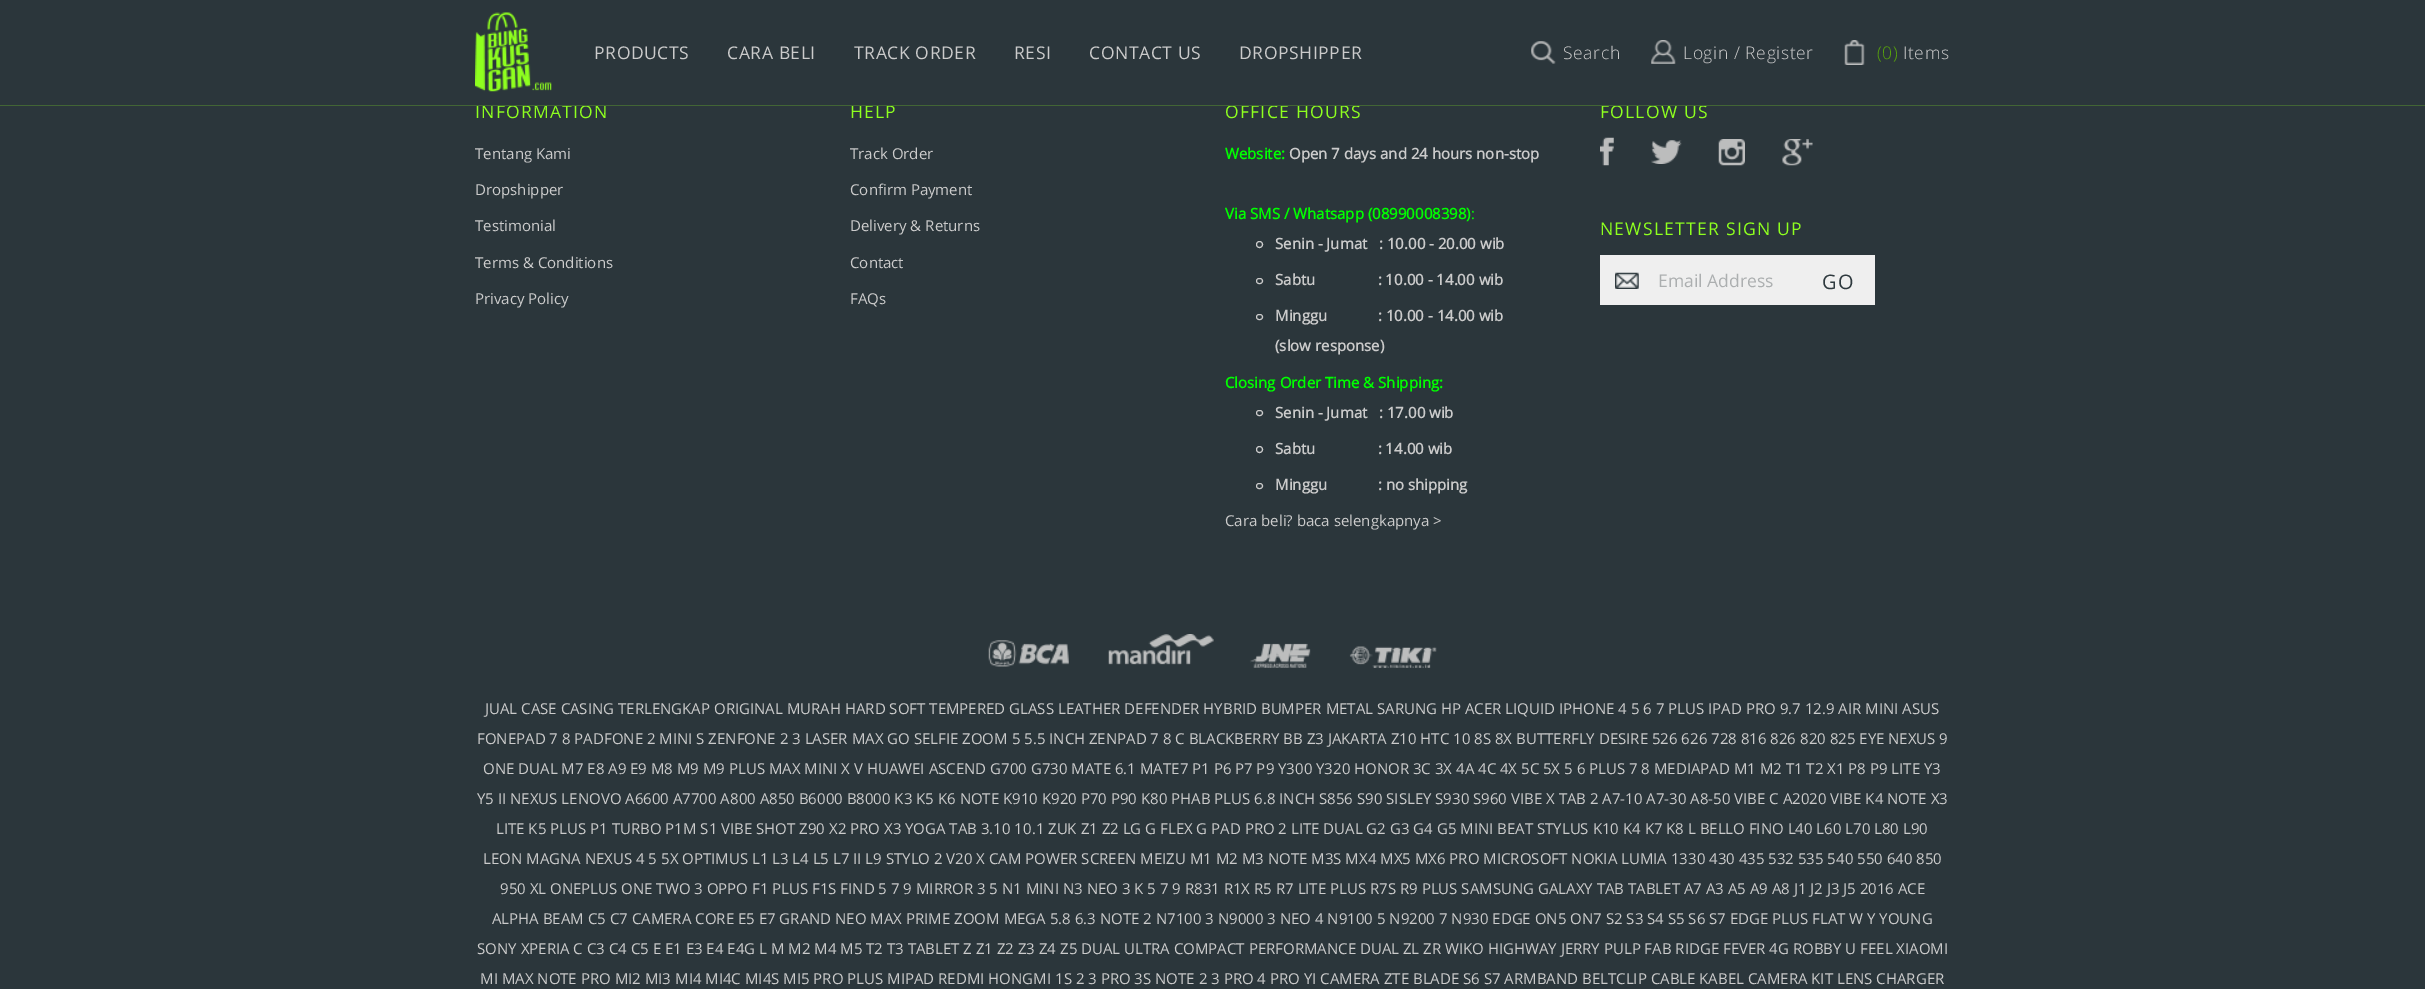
%!PS
<< /PageSize [2425 989] >> setpagedevice
/roundrect { 5 dict begin { /r /h /w /y /x } { exch def } forall
  x r add y moveto x w add y 2 copy h add r arct x w add y h add x 1 index r arct
  x y h add x y r arct x y 2 copy exch w add exch r arct closepath end } def
/picture { 5 dict begin { /h /w /y /x /name } { exch def } forall
  gsave x y translate w h scale
  w h 8 [w 0 0 h 0 0] name (r) file false 3 colorimage grestore end } def
0 989 translate 1 -1 scale
4 setmiterlimit
0.169 0.212 0.231 setrgbcolor
0 0 2425 989 rectfill
/OpenSans-Regular [17.5 0 0 -17.5 0 0] selectfont
0.557 1 0.122 setrgbcolor
475 118 moveto 1.25 0 (INFORMATION) ashow
850 118 moveto 1.25 0 (HELP) ashow
1225 118 moveto 1.25 0 (OFFICE HOURS) ashow
1600 118 moveto 1.25 0 (FOLLOW US) ashow
0.259 0.396 0.208 setrgbcolor
0 105 2425 1 rectfill
(img1.rgb) 475 12 77 80 picture
0.796 setgray
594 59 moveto 0.6 0 (PRODUCTS) ashow
727 59 moveto 0.6 0 (CARA BELI) ashow
854 59 moveto 0.6 0 (TRACK ORDER) ashow
1014 59 moveto 0.6 0 (RESI) ashow
1089 59 moveto 0.6 0 (CONTACT US) ashow
1239 59 moveto 0.6 0 (DROPSHIPPER) ashow
(img2.rgb) 1531 41 25 23 picture
/OpenSans-Light [17.5 0 0 -17.5 0 0] selectfont
1563 59 moveto 0.6 0 (Search) ashow
(img3.rgb) 1651 40 25 24 picture
1683 59 moveto 0.6 0 (Login / Register) ashow
(img4.rgb) 1844 40 21 25 picture
0.337 0.627 0.051 setrgbcolor
1877 59 moveto 0.6 0 (\(0\)) ashow
0.796 setgray
1903 59 moveto 0.6 0 (Items) ashow
/OpenSans-Regular [15 0 0 -15 0 0] selectfont
475 159 moveto (Tentang Kami) show
475 195 moveto (Dropshipper) show
475 231 moveto (Testimonial) show
475 268 moveto (Terms & Conditions) show
475 304 moveto (Privacy Policy) show
850 159 moveto (Track Order) show
850 195 moveto (Confirm Payment) show
850 231 moveto (Delivery & Returns) show
850 268 moveto (Contact) show
850 304 moveto (FAQs) show
/OpenSans-Bold [15 0 0 -15 0 0] selectfont
0 1 0 setrgbcolor
1225 159 moveto (Website:) show
0.796 setgray
1289 159 moveto (Open 7 days and 24 hours non-stop) show
0 1 0 setrgbcolor
1225 219 moveto (Via SMS / Whatsapp \(08990008398\)) show
/OpenSans-Regular [15 0 0 -15 0 0] selectfont
1471 219 moveto (:) show
0.796 setgray
newpath 1259.5 244.5 3 0 360 arc closepath stroke
/OpenSans-Bold [15 0 0 -15 0 0] selectfont
1275 249 moveto (Senin - Jumat   : 10.00 - 20.00 wib) show
1256.5 278.5 6 5 2.5 roundrect stroke
1275 285 moveto (Sabtu                : 10.00 - 14.00 wib) show
1256.5 314.5 6 5 2.5 roundrect stroke
1275 321 moveto (Minggu             : 10.00 - 14.00 wib) show
1275 351 moveto (\(slow response\)) show
0 1 0 setrgbcolor
1225 388 moveto (Closing Order Time & Shipping:) show
0.796 setgray
1256.5 410.5 6 5 2.5 roundrect stroke
1275 418 moveto (Senin - Jumat   : 17.00 wib) show
newpath 1259.5 449.5 3 0 360 arc closepath stroke
1275 454 moveto (Sabtu                : 14.00 wib) show
1256.5 483.5 6 5 2.5 roundrect stroke
1275 490 moveto (Minggu             : no shipping) show
/OpenSans-Regular [15 0 0 -15 0 0] selectfont
1225 526 moveto (Cara beli? baca selengkapnya >) show
(img5.rgb) 1600 137 14 29 picture
(img6.rgb) 1651 140 31 24 picture
(img7.rgb) 1718 139 27 27 picture
(img8.rgb) 1782 139 31 27 picture
/OpenSans-Regular [17.5 0 0 -17.5 0 0] selectfont
0.557 1 0.122 setrgbcolor
1600 235 moveto 1.25 0 (NEWSLETTER SIGN UP) ashow
0.937 setgray
1600 255 275 50 rectfill
(img9.rgb) 1615 272 24 17 picture
0.675 0.686 0.69 setrgbcolor
1658 287 moveto (Email Address) show
/OpenSans-Regular [20 0 0 -20 0 0] selectfont
0.184 0.227 0.247 setrgbcolor
1822 289 moveto 1.25 0 (GO) ashow
(img10.rgb) 988 634 449 34 picture
/OpenSans-Regular [15 0 0 -15 0 0] selectfont
0.796 setgray
485 714 moveto (JUAL CASE CASING TERLENGKAP ORIGINAL MURAH HARD SOFT TEMPERED GLASS LEATHER DEFENDER HYBRID BUMPER METAL SARUNG HP ACER LIQUID IPHONE 4 5 6 7 PLUS IPAD PRO 9.7 12.9 AIR MINI ASUS) show
477 744 moveto (FONEPAD 7 8 PADFONE 2 MINI S ZENFONE 2 3 LASER MAX GO SELFIE ZOOM 5 5.5 INCH ZENPAD 7 8 C BLACKBERRY BB Z3 JAKARTA Z10 HTC 10 8S 8X BUTTERFLY DESIRE 526 626 728 816 826 820 825 EYE NEXUS 9) show
483 774 moveto (ONE DUAL M7 E8 A9 E9 M8 M9 M9 PLUS MAX MINI X V HUAWEI ASCEND G700 G730 MATE 6.1 MATE7 P1 P6 P7 P9 Y300 Y320 HONOR 3C 3X 4A 4C 4X 5C 5X 5 6 PLUS 7 8 MEDIAPAD M1 M2 T1 T2 X1 P8 P9 LITE Y3) show
477 804 moveto (Y5 II NEXUS LENOVO A6600 A7700 A800 A850 B6000 B8000 K3 K5 K6 NOTE K910 K920 P70 P90 K80 PHAB PLUS 6.8 INCH S856 S90 SISLEY S930 S960 VIBE X TAB 2 A7-10 A7-30 A8-50 VIBE C A2020 VIBE K4 NOTE X3) show
496 834 moveto (LITE K5 PLUS P1 TURBO P1M S1 VIBE SHOT Z90 X2 PRO X3 YOGA TAB 3.10 10.1 ZUK Z1 Z2 LG G FLEX G PAD PRO 2 LITE DUAL G2 G3 G4 G5 MINI BEAT STYLUS K10 K4 K7 K8 L BELLO FINO L40 L60 L70 L80 L90) show
483 864 moveto (LEON MAGNA NEXUS 4 5 5X OPTIMUS L1 L3 L4 L5 L7 II L9 STYLO 2 V20 X CAM POWER SCREEN MEIZU M1 M2 M3 NOTE M3S MX4 MX5 MX6 PRO MICROSOFT NOKIA LUMIA 1330 430 435 532 535 540 550 640 850) show
500 894 moveto (950 XL ONEPLUS ONE TWO 3 OPPO F1 PLUS F1S FIND 5 7 9 MIRROR 3 5 N1 MINI N3 NEO 3 K 5 7 9 R831 R1X R5 R7 LITE PLUS R7S R9 PLUS SAMSUNG GALAXY TAB TABLET A7 A3 A5 A9 A8 J1 J2 J3 J5 2016 ACE) show
492 924 moveto (ALPHA BEAM C5 C7 CAMERA CORE E5 E7 GRAND NEO MAX PRIME ZOOM MEGA 5.8 6.3 NOTE 2 N7100 3 N9000 3 NEO 4 N9100 5 N9200 7 N930 EDGE ON5 ON7 S2 S3 S4 S5 S6 S7 EDGE PLUS FLAT W Y YOUNG) show
477 954 moveto (SONY XPERIA C C3 C4 C5 E E1 E3 E4 E4G L M M2 M4 M5 T2 T3 TABLET Z Z1 Z2 Z3 Z4 Z5 DUAL ULTRA COMPACT PERFORMANCE DUAL ZL ZR WIKO HIGHWAY JERRY PULP FAB RIDGE FEVER 4G ROBBY U FEEL XIAOMI) show
480 984 moveto (MI MAX NOTE PRO MI2 MI3 MI4 MI4C MI4S MI5 PRO PLUS MIPAD REDMI HONGMI 1S 2 3 PRO 3S NOTE 2 3 PRO 4 PRO YI CAMERA ZTE BLADE S6 S7 ARMBAND BELTCLIP CABLE KABEL CAMERA KIT LENS CHARGER) show
showpage
